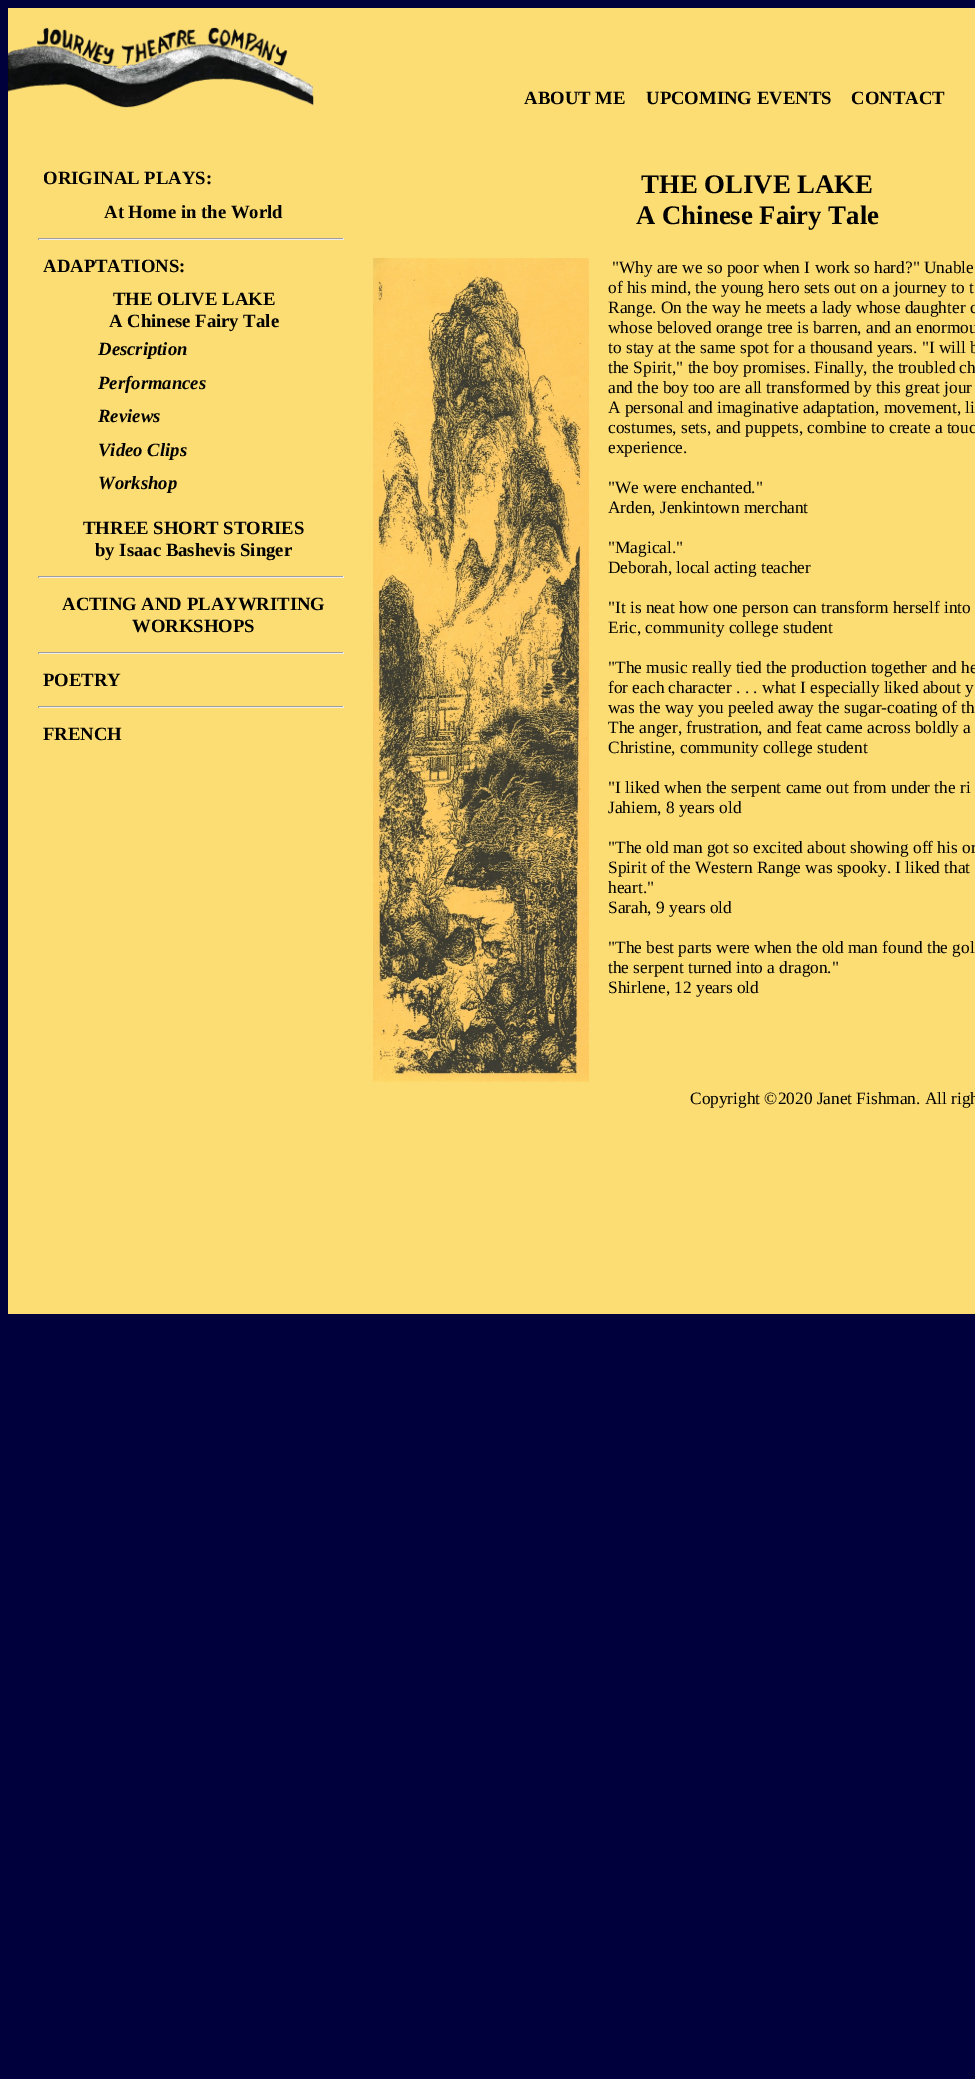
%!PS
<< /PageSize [975 2079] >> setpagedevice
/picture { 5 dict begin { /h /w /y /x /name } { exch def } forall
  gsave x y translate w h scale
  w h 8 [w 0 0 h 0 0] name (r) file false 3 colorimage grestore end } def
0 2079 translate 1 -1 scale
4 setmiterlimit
0 0 0.235 setrgbcolor
0 0 975 2079 rectfill
0.988 0.867 0.455 setrgbcolor
8 8 967 1306 rectfill
(img1.rgb) 8 27 306 81 picture
/LiberationSerif-Bold [18.7 0 0 -18.7 0 0] selectfont
0 setgray
524 104 moveto (ABOUT ME) show
646 104 moveto (UPCOMING EVENTS) show
851 104 moveto (CONTACT) show
43 184 moveto (ORIGINAL PLAYS:) show
104 218 moveto (At Home in the World) show
0.624 setgray
38 238 306 1 rectfill
0.933 setgray
343 238 1 2 rectfill
38 239 306 1 rectfill
0.624 setgray
38 238 1 2 rectfill
0 setgray
43 272 moveto (ADAPTATIONS:) show
113 305 moveto (THE OLIVE LAKE) show
109 327 moveto (A Chinese Fairy Tale) show
/LiberationSerif-BoldItalic [18.7 0 0 -18.7 0 0] selectfont
98 355 moveto (Description) show
98 389 moveto (Performances) show
98 422 moveto (Reviews) show
98 456 moveto (Video Clips) show
98 489 moveto (Workshop) show
/LiberationSerif-Bold [18.7 0 0 -18.7 0 0] selectfont
83 534 moveto (THREE SHORT STORIES) show
95 556 moveto (by Isaac Bashevis Singer) show
0.624 setgray
38 576 306 1 rectfill
0.933 setgray
343 576 1 2 rectfill
38 577 306 1 rectfill
0.624 setgray
38 576 1 2 rectfill
0 setgray
62 610 moveto (ACTING AND PLAYWRITING) show
132 632 moveto (WORKSHOPS) show
0.624 setgray
38 652 306 1 rectfill
0.933 setgray
343 652 1 2 rectfill
38 653 306 1 rectfill
0.624 setgray
38 652 1 2 rectfill
0 setgray
43 686 moveto (POETRY) show
0.624 setgray
38 706 306 1 rectfill
0.933 setgray
343 706 1 2 rectfill
38 707 306 1 rectfill
0.624 setgray
38 706 1 2 rectfill
0 setgray
43 740 moveto (FRENCH) show
/LiberationSerif-Bold [26.75 0 0 -26.75 0 0] selectfont
641 193 moveto (THE OLIVE LAKE) show
636 224 moveto (A Chinese Fairy Tale) show
(img2.rgb) 373 258 216 824 picture
/LiberationSerif-Regular [17.3 0 0 -17.3 0 0] selectfont
612 273 moveto ("Why are we so poor when I work so hard?" Unable) show
608 293 moveto (of his mind, the young hero sets out on a journey to t) show
608 313 moveto (Range. On the way he meets a lady whose daughter c) show
608 333 moveto (whose beloved orange tree is barren, and an enormou) show
608 353 moveto (to stay at the same spot for a thousand years. "I will b) show
608 373 moveto (the Spirit," the boy promises. Finally, the troubled ch) show
608 393 moveto (and the boy too are all transformed by this great jour) show
608 413 moveto (A personal and imaginative adaptation, movement, li) show
608 433 moveto (costumes, sets, and puppets, combine to create a touc) show
608 453 moveto (experience.) show
608 493 moveto ("We were enchanted.") show
608 513 moveto (Arden, Jenkintown merchant) show
608 553 moveto ("Magical.") show
608 573 moveto (Deborah, local acting teacher) show
608 613 moveto ("It is neat how one person can transform herself into) show
608 633 moveto (Eric, community college student) show
608 673 moveto ("The music really tied the production together and he) show
608 693 moveto (for each character . . . what I especially liked about y) show
608 713 moveto (was the way you peeled away the sugar-coating of th) show
608 733 moveto (The anger, frustration, and feat came across boldly a) show
608 753 moveto (Christine, community college student) show
608 793 moveto ("I liked when the serpent came out from under the ri) show
608 813 moveto (Jahiem, 8 years old) show
608 853 moveto ("The old man got so excited about showing off his or) show
608 873 moveto (Spirit of the Western Range was spooky. I liked that) show
608 893 moveto (heart.") show
608 913 moveto (Sarah, 9 years old) show
608 953 moveto ("The best parts were when the old man found the gol) show
608 973 moveto (the serpent turned into a dragon.") show
608 993 moveto (Shirlene, 12 years old) show
690 1104 moveto (Copyright ©2020 Janet Fishman. All righ) show
showpage
